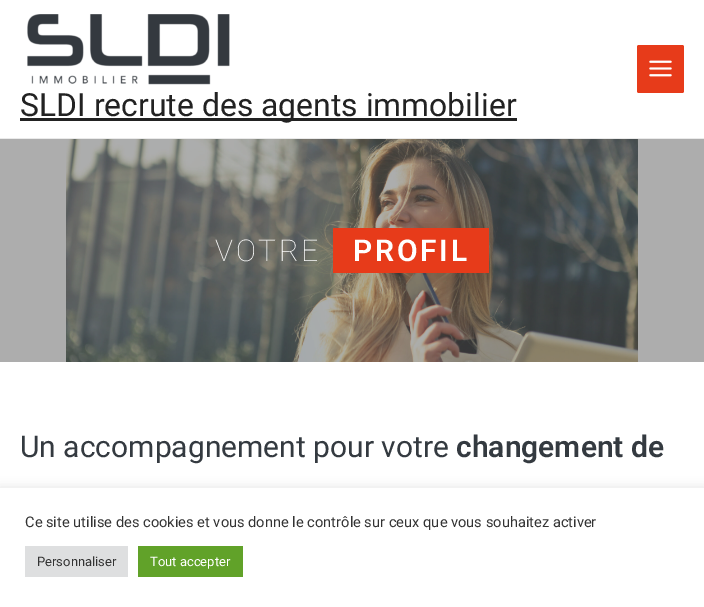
%!PS
<< /PageSize [704 607] /PageUsesTransparency true >> setpagedevice
/alpha { dup .setfillconstantalpha .setstrokeconstantalpha } def
/roundrect { 5 dict begin { /r /h /w /y /x } { exch def } forall
  x r add y moveto x w add y 2 copy h add r arct x w add y h add x 1 index r arct
  x y h add x y r arct x y 2 copy exch w add exch r arct closepath end } def
/shadow { 12 dict begin { /a /b /q /h /w /y /x } { exch def } forall gsave /was 0 def
  9 -2 -9 { dup b mul 4 div /e exch def 1 sub .425 mul 2.718 exch exp 1 add a .99 .min exch div /now exch def
    1 1 now sub 1 was sub div sub alpha /was now def
    w h .min e 2 mul add 0 gt { x e sub y e sub w e 2 mul add h e 2 mul add
      q e add b .6 mul add w h .min 2 div e add .min 0 .max roundrect fill } if } for grestore end } def
/picture { 5 dict begin { /h /w /y /x /name } { exch def } forall
  gsave x y translate w h scale
  w h 8 [w 0 0 h 0 0] name (r) file false 3 colorimage grestore end } def
0 .pushpdf14devicefilter
0 607 translate 1 -1 scale
4 setmiterlimit
1 setgray
0 0 704 607 rectfill
0.678 setgray
0 139 704 223 rectfill
0.918 setgray
0 138 704 1 rectfill
0.906 0.231 0.102 setrgbcolor
637 45 47 48 2 roundrect fill
(img1.rgb) 649 60 23 17 picture
(img2.rgb) 27 14 203 71 picture
0.133 setgray
20 118 497 3 rectfill
/Roboto-Regular [31.9 0 0 -31.9 0 0] selectfont
20 116 moveto (SLDI recrute des agents immobilier) show
(img3.rgb) 66 139 572 223 picture
/Roboto-Thin [30 0 0 -30 0 0] selectfont
1 setgray
215 261 moveto 2.75 0 (VOTRE) ashow
0.906 0.231 0.102 setrgbcolor
333 228 156 45 rectfill
/Roboto-SemiBold [30 0 0 -30 0 0] selectfont
1 setgray
353 261 moveto 2.75 0 (PROFIL) ashow
/Roboto-Regular [30 0 0 -30 0 0] selectfont
0.204 0.227 0.251 setrgbcolor
20 457 moveto (Un accompagnement pour votre) show
/Roboto-SemiBold [30 0 0 -30 0 0] selectfont
456 457 moveto (changement de) show
0.675 0.671 0.671 setrgbcolor
0 487 704 119 0 5 0.3 shadow
1 setgray
0 488 704 119 rectfill
/Roboto-Regular [14.65 0 0 -14.65 0 0] selectfont
0.2 setgray
25 527 moveto (Ce site utilise des cookies et vous donne le contrôle sur ceux que vous souhaitez activer) show
0.871 0.875 0.878 setrgbcolor
25 546 103 31 rectfill
/Roboto-Regular [13 0 0 -13 0 0] selectfont
0.2 setgray
37 566 moveto (Personnaliser) show
0.38 0.635 0.161 setrgbcolor
138 546 105 31 rectfill
1 setgray
150 566 moveto (Tout accepter) show
.poppdf14devicefilter showpage
